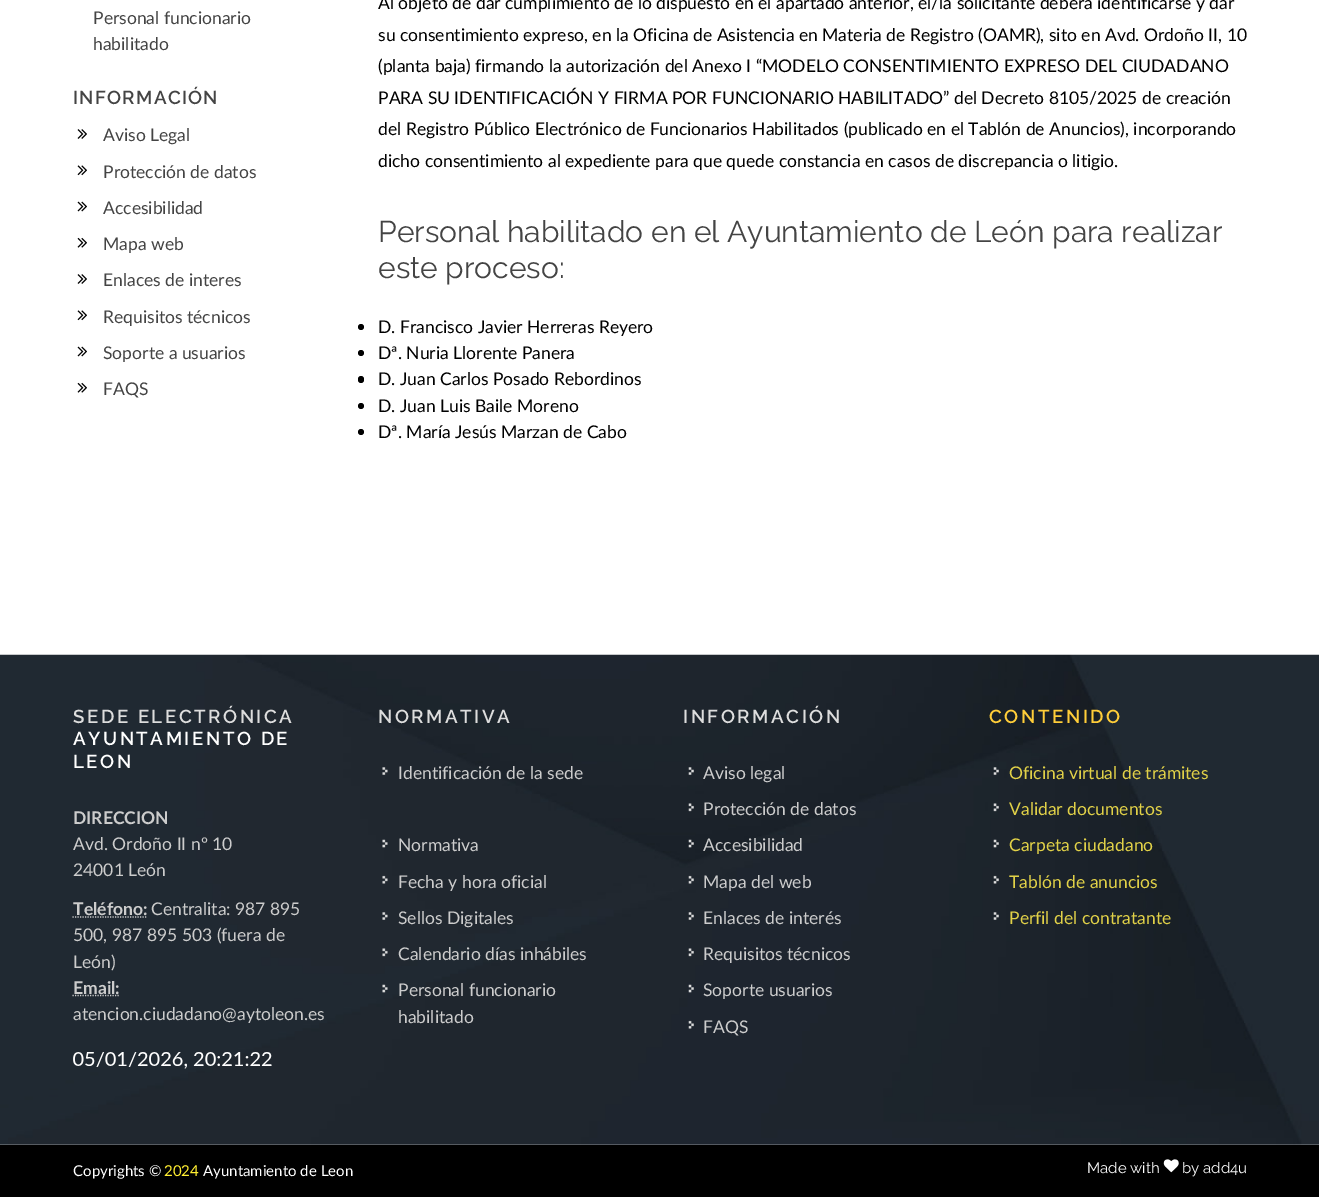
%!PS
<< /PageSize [1319 1197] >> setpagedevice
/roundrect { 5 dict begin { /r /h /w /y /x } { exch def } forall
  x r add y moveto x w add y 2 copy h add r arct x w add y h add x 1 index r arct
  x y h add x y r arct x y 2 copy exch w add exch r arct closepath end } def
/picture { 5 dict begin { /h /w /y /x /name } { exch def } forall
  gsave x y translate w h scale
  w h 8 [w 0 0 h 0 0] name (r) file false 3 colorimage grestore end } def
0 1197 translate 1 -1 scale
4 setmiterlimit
1 setgray
0 0 1319 1197 rectfill
/Lato-Regular [17.5 0 0 -17.5 0 0] selectfont
0.267 setgray
93 24 moveto (Personal funcionario) show
93 50 moveto (habilitado) show
/Raleway-SemiBold [18.75 0 0 -18.75 0 0] selectfont
73 104 moveto 1.25 0 (INFORMACIÓN) ashow
(img1.rgb) 77 129 10 10 picture
/Lato-Regular [17.5 0 0 -17.5 0 0] selectfont
103 141 moveto (Aviso Legal) show
(img2.rgb) 77 165 10 11 picture
103 178 moveto (Protección de datos) show
(img3.rgb) 77 201 10 11 picture
103 214 moveto (Accesibilidad) show
(img4.rgb) 77 237 10 11 picture
103 250 moveto (Mapa web) show
(img1.rgb) 77 274 10 10 picture
103 286 moveto (Enlaces de interes) show
(img2.rgb) 77 310 10 11 picture
103 323 moveto (Requisitos técnicos) show
(img3.rgb) 77 346 10 11 picture
103 359 moveto (Soporte a usuarios) show
(img4.rgb) 77 382 10 11 picture
103 395 moveto (FAQS) show
0 setgray
378 9 moveto (Al objeto de dar cumplimiento de lo dispuesto en el apartado anterior, el/la solicitante deberá identificarse y dar) show
378 41 moveto (su consentimiento expreso, en la Oficina de Asistencia en Materia de Registro \(OAMR\), sito en Avd. Ordoño II, 10) show
378 72 moveto (\(planta baja\) firmando la autorización del Anexo I “MODELO CONSENTIMIENTO EXPRESO DEL CIUDADANO) show
378 104 moveto (PARA SU IDENTIFICACIÓN Y FIRMA POR FUNCIONARIO HABILITADO” del Decreto 8105/2025 de creación) show
378 135 moveto (del Registro Público Electrónico de Funcionarios Habilitados \(publicado en el Tablón de Anuncios\), incorporando) show
378 167 moveto (dicho consentimiento al expediente para que quede constancia en casos de discrepancia o litigio.) show
/Raleway-Regular [30 0 0 -30 0 0] selectfont
0.267 setgray
378 242 moveto (Personal habilitado en el Ayuntamiento de León para realizar) show
378 278 moveto (este proceso:) show
0 setgray
newpath 361 327 3 0 360 arc closepath fill
/Lato-Regular [17.5 0 0 -17.5 0 0] selectfont
378 333 moveto (D. Francisco Javier Herreras Reyero) show
newpath 361 353 3 0 360 arc closepath fill
378 359 moveto (Dª. Nuria Llorente Panera) show
358 376 6 7 3 roundrect fill
378 385 moveto (D. Juan Carlos Posado Rebordinos) show
newpath 361 406 3 0 360 arc closepath fill
378 412 moveto (D. Juan Luis Baile Moreno) show
newpath 361 432 3 0 360 arc closepath fill
378 438 moveto (Dª. María Jesús Marzan de Cabo) show
(img5.rgb) 0 654 1319 491 picture
/Raleway-SemiBold [18.75 0 0 -18.75 0 0] selectfont
0.867 setgray
73 723 moveto 2.5 0 (SEDE ELECTRÓNICA) ashow
1 setgray
73 745 moveto 2.5 0 (AYUNTAMIENTO DE) ashow
73 768 moveto 2.5 0 (LEON) ashow
/Lato-Bold [17.5 0 0 -17.5 0 0] selectfont
0.8 setgray
73 824 moveto (DIRECCION) show
/Lato-Regular [17.5 0 0 -17.5 0 0] selectfont
73 850 moveto (Avd. Ordoño II nº 10) show
73 876 moveto (24001 León) show
/Lato-Bold [17.5 0 0 -17.5 0 0] selectfont
73 915 moveto (Teléfono:) show
1.2 setlinewidth
[1.25 1.25] 0 setdash
newpath 72.5 917 moveto 147 917 lineto stroke
/Lato-Regular [17.5 0 0 -17.5 0 0] selectfont
151 915 moveto (Centralita: 987 895) show
73 941 moveto (500, 987 895 503 \(fuera de) show
73 968 moveto (León\)) show
newpath 72.5 995.5 moveto 119.5 995.5 lineto stroke
/Lato-Bold [17.5 0 0 -17.5 0 0] selectfont
73 994 moveto (Email:) show
/Lato-Regular [17.5 0 0 -17.5 0 0] selectfont
73 1020 moveto (atencion.ciudadano@aytoleon.es) show
(img6.rgb) 73 1052 199 17 picture
/Raleway-SemiBold [18.75 0 0 -18.75 0 0] selectfont
0.867 setgray
378 723 moveto 2.5 0 (NORMATIVA) ashow
(img7.rgb) 382 767 6 8 picture
/Lato-Regular [17.5 0 0 -17.5 0 0] selectfont
0.8 setgray
398 779 moveto (Identificación de la sede) show
(img8.rgb) 382 839 6 9 picture
398 851 moveto (Normativa) show
(img9.rgb) 382 875 6 9 picture
398 888 moveto (Fecha y hora oficial) show
(img10.rgb) 382 912 6 8 picture
398 924 moveto (Sellos Digitales) show
(img11.rgb) 382 948 6 9 picture
398 960 moveto (Calendario días inhábiles) show
(img12.rgb) 382 984 6 9 picture
398 996 moveto (Personal funcionario) show
398 1023 moveto (habilitado) show
/Raleway-SemiBold [18.75 0 0 -18.75 0 0] selectfont
0.867 setgray
683 723 moveto 2.5 0 (INFORMACIÓN) ashow
(img13.rgb) 688 767 6 8 picture
/Lato-Regular [17.5 0 0 -17.5 0 0] selectfont
0.8 setgray
703 779 moveto (Aviso legal) show
(img14.rgb) 688 803 6 9 picture
703 815 moveto (Protección de datos) show
(img15.rgb) 688 839 6 9 picture
703 851 moveto (Accesibilidad) show
(img16.rgb) 688 875 6 9 picture
703 888 moveto (Mapa del web) show
(img17.rgb) 688 912 6 8 picture
703 924 moveto (Enlaces de interés) show
(img18.rgb) 688 948 6 9 picture
703 960 moveto (Requisitos técnicos) show
(img19.rgb) 688 984 6 9 picture
703 996 moveto (Soporte usuarios) show
(img20.rgb) 688 1020 6 9 picture
703 1033 moveto (FAQS) show
/Raleway-SemiBold [18.75 0 0 -18.75 0 0] selectfont
1 0.804 0.224 setrgbcolor
989 723 moveto 2.5 0 (CONTENIDO) ashow
(img21.rgb) 993 767 6 8 picture
/Lato-Regular [17.5 0 0 -17.5 0 0] selectfont
0.882 0.82 0.282 setrgbcolor
1009 779 moveto (Oficina virtual de trámites) show
(img22.rgb) 993 803 6 9 picture
1009 815 moveto (Validar documentos) show
(img23.rgb) 993 839 6 9 picture
1009 851 moveto (Carpeta ciudadano) show
(img24.rgb) 993 875 6 9 picture
1009 888 moveto (Tablón de anuncios) show
(img13.rgb) 993 912 6 8 picture
1009 924 moveto (Perfil del contratante) show
0 setgray
0 1145 1319 52 rectfill
/Lato-Regular [15 0 0 -15 0 0] selectfont
1 setgray
73 1176 moveto (Copyrights ©) show
1 0.933 0.192 setrgbcolor
164 1176 moveto (2024) show
1 setgray
203 1176 moveto (Ayuntamiento de Leon) show
/Raleway-Regular [15 0 0 -15 0 0] selectfont
1087 1173 moveto (Made with) show
(img25.rgb) 1163 1159 16 14 picture
1182 1173 moveto (by add4u) show
showpage
